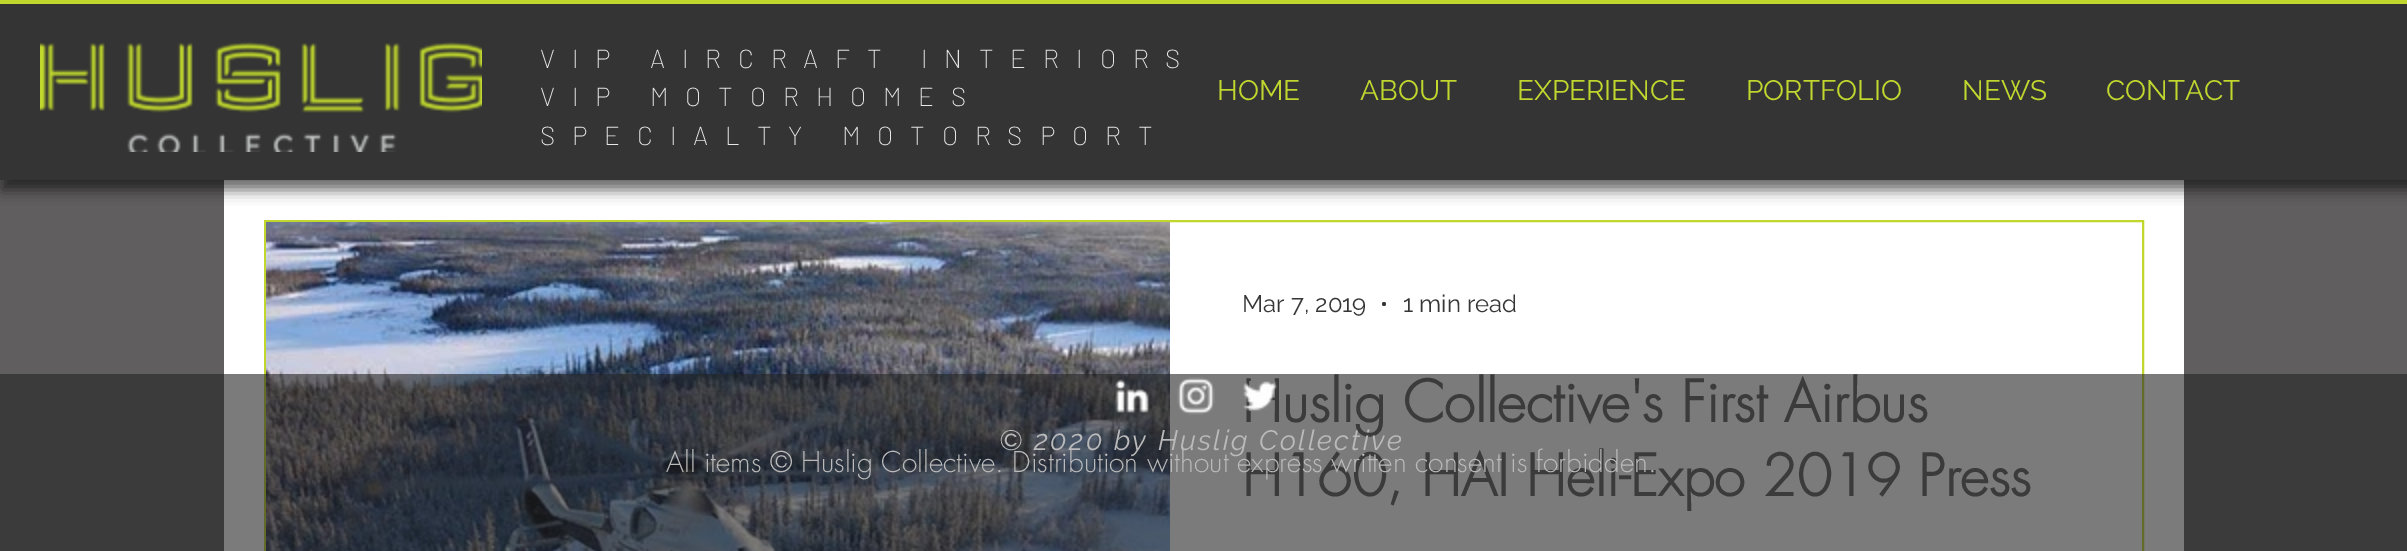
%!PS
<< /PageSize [2407 551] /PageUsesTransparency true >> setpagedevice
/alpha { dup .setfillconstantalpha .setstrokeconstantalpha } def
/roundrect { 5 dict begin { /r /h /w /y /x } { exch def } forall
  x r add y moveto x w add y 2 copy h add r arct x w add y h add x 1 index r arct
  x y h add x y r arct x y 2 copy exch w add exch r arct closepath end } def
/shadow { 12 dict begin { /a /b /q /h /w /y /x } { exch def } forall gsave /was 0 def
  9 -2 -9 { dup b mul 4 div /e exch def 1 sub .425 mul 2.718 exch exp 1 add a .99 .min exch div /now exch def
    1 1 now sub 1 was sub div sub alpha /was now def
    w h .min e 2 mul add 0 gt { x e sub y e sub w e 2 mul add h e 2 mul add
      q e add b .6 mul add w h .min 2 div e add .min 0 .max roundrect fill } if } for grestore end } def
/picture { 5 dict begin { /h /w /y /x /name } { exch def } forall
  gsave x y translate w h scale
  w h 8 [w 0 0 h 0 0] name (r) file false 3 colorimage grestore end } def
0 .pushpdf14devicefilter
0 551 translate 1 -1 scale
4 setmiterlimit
0.376 0.369 0.369 setrgbcolor
0 0 2407 551 rectfill
1 setgray
224 180 1960 371 rectfill
0 setgray
2 2 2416 188 0 7 0.6 shadow
0.204 setgray
0 4 2407 176 rectfill
0.757 0.843 0.18 setrgbcolor
0 0 2407 4 rectfill
(img1.rgb) 40 42 442 110 picture
/Barlow-ExtraLight [26 0 0 -26 0 0] selectfont
0.91 0.902 0.902 setrgbcolor
540 68 moveto 16.9 0 (VIP AIRCRAFT INTERIORS) ashow
540 106 moveto 16.9 0 (VIP MOTORHOMES) ashow
540 145 moveto 16.9 0 (SPECIALTY MOTORSPORT) ashow
/Raleway-Regular [28 0 0 -28 0 0] selectfont
0.757 0.843 0.18 setrgbcolor
1217 100 moveto (HOME) show
1360 100 moveto (ABOUT) show
1517 100 moveto (EXPERIENCE) show
1746 100 moveto (PORTFOLIO) show
1962 100 moveto (NEWS) show
2106 100 moveto (CONTACT) show
2 setlinewidth
265 221 1878 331 rectstroke
(img2.rgb) 266 222 904 329 picture
/Raleway-Regular [24 0 0 -24 0 0] selectfont
0.212 setgray
1242 312 moveto (Mar 7, 2019) show
newpath 1384 304 2 0 360 arc closepath fill
1403 312 moveto (1 min read) show
/futura-Bold [56 0 0 -56 0 0] selectfont
0.376 0.369 0.369 setrgbcolor
1242 422 moveto (Huslig Collective's First Airbus) show
1242 496 moveto (H160, HAI Heli-Expo 2019 Press) show
0.6 alpha
0.137 setgray
0 374 2407 177 rectfill
1 alpha
(img3.rgb) 1115 379 34 34 picture
(img4.rgb) 1177 377 38 38 picture
(img5.rgb) 1243 381 34 30 picture
/Raleway-Italic [28 0 0 -28 0 0] selectfont
0.729 setgray
999 450 moveto 2.25 0 (© 2020 by Huslig Collective) ashow
/futura-Light [28 0 0 -28 0 0] selectfont
666 472 moveto (All items © Huslig Collective. Distribution without express written consent is forbidden.) show
.poppdf14devicefilter showpage
